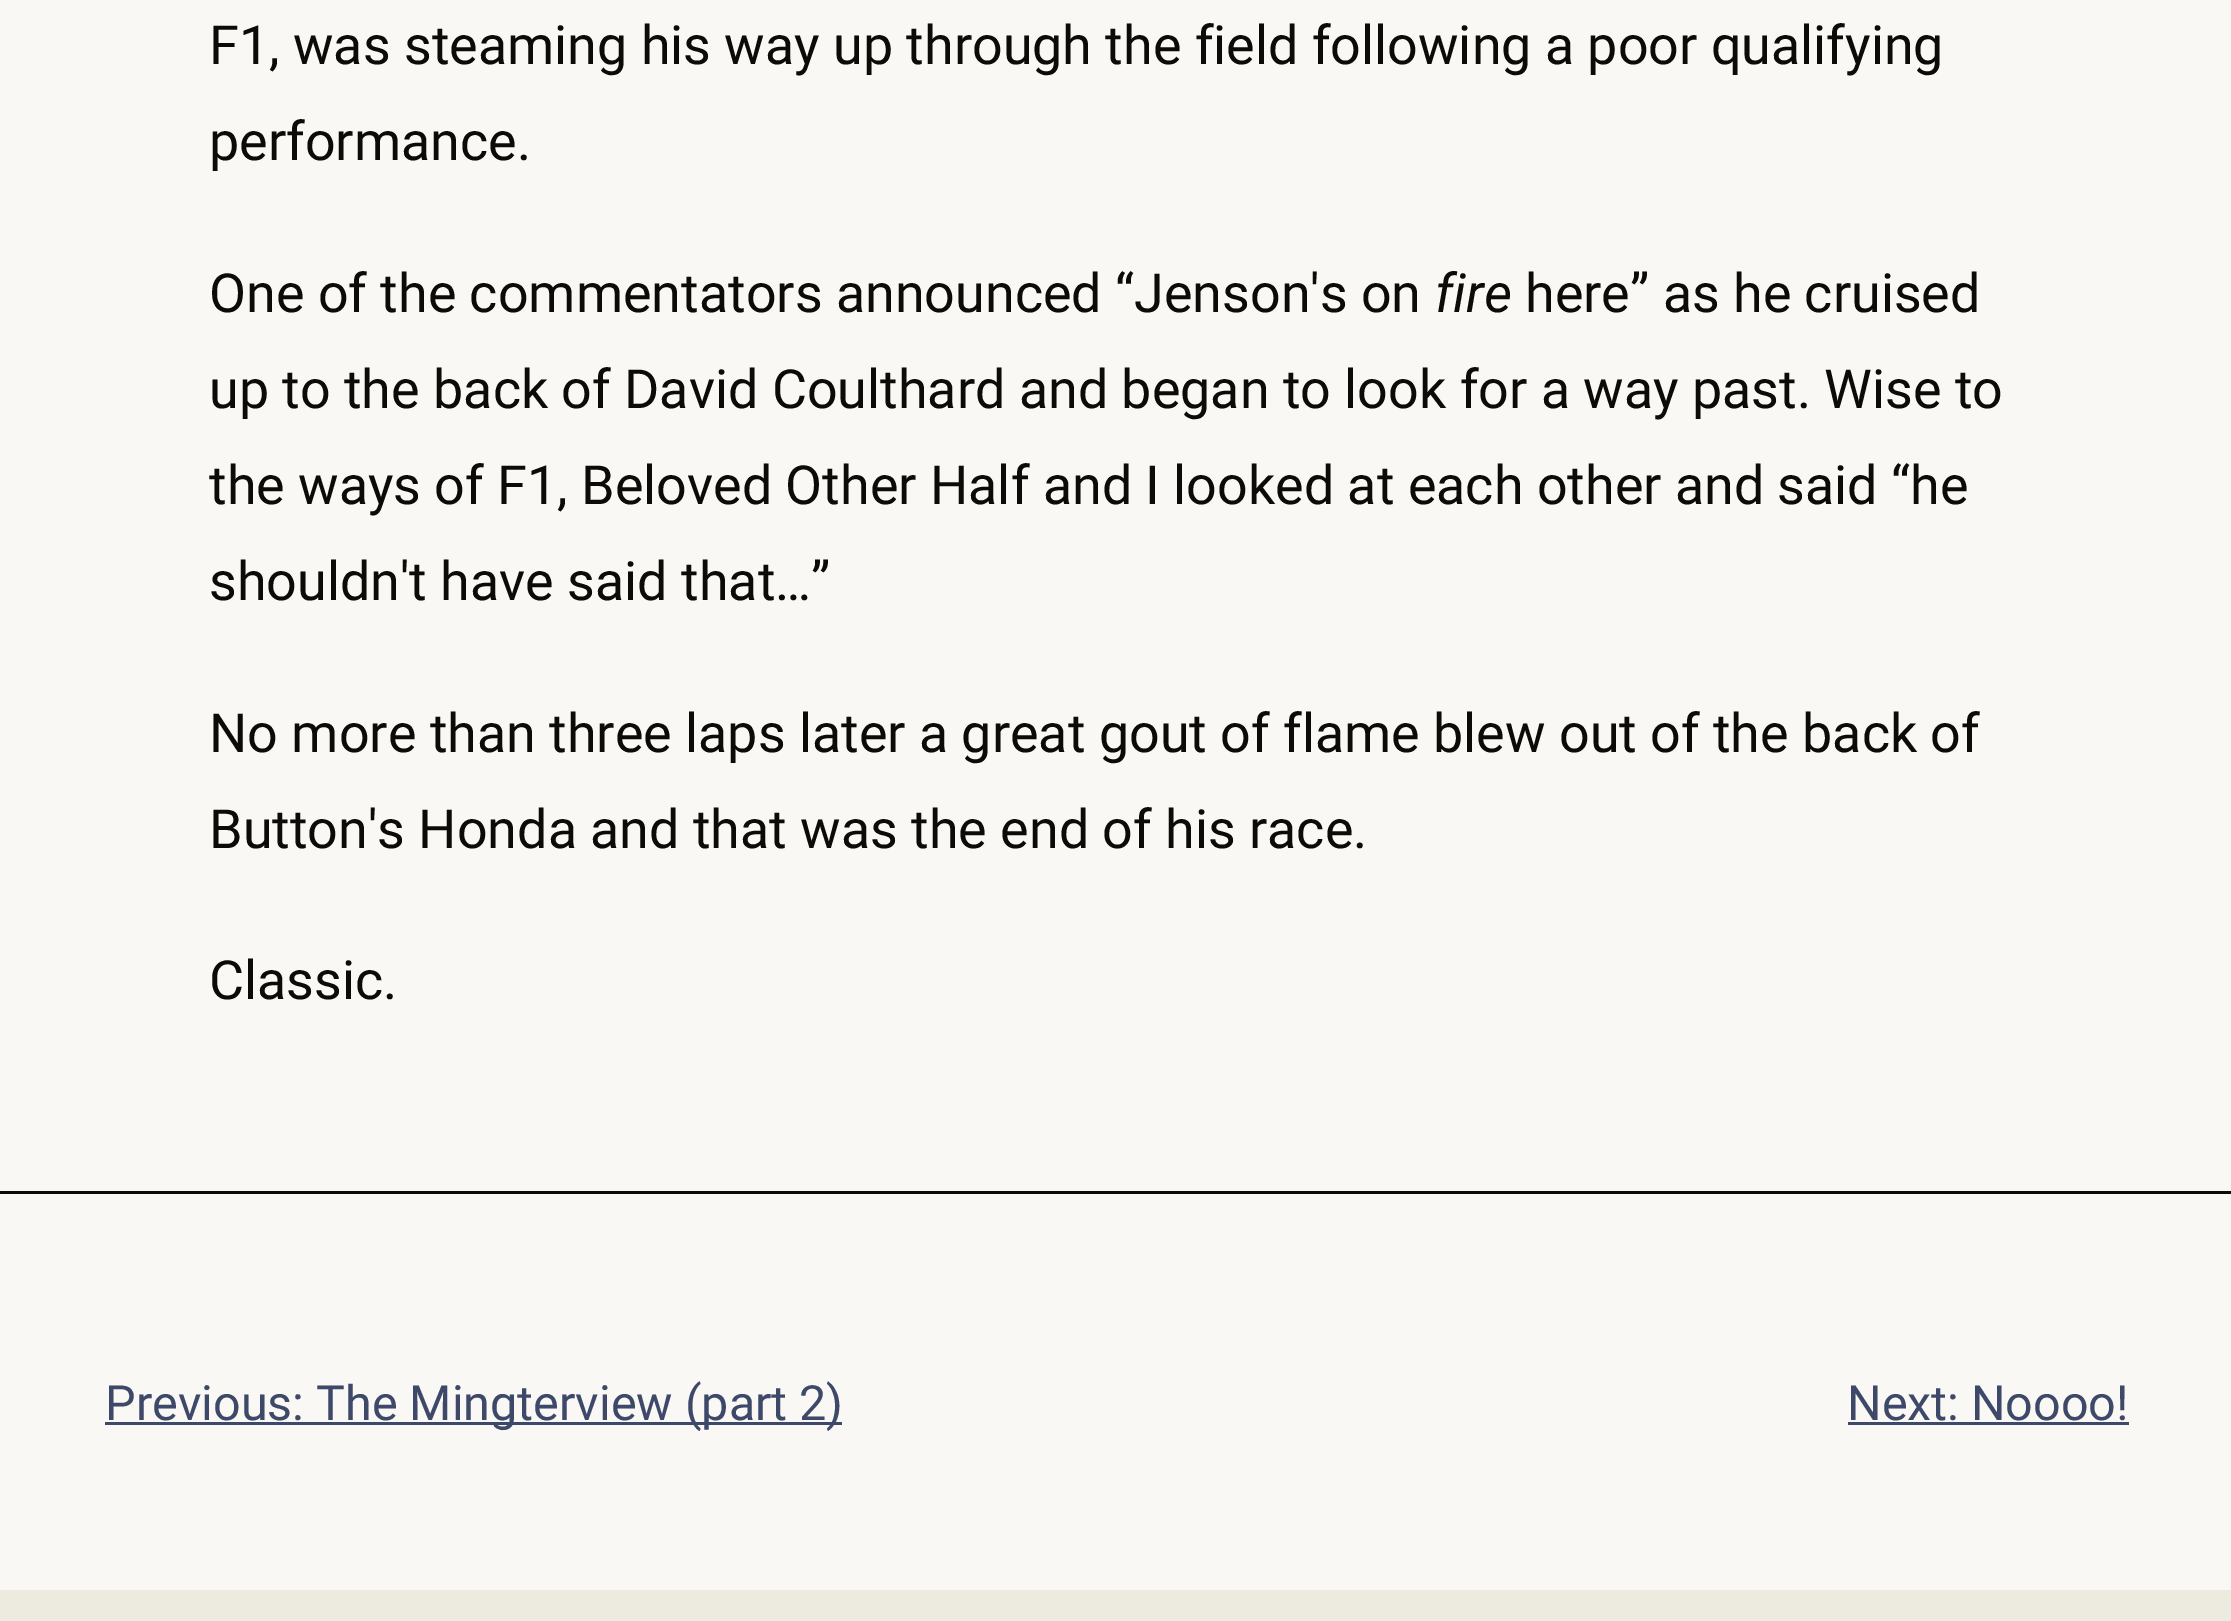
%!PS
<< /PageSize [2231 1621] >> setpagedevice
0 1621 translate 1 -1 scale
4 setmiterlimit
0.976 0.973 0.961 setrgbcolor
0 0 2231 1621 rectfill
/Roboto-Regular [55 0 0 -55 0 0] selectfont
0.047 0.043 0.027 setrgbcolor
209 64 moveto (F1, was steaming his way up through the field following a poor qualifying) show
209 160 moveto (performance.) show
209 312 moveto (One of the commentators announced “Jenson's on) show
/Roboto-Italic [55 0 0 -55 0 0] selectfont
1435 312 moveto (fire) show
/Roboto-Regular [55 0 0 -55 0 0] selectfont
1525 312 moveto (here” as he cruised) show
209 408 moveto (up to the back of David Coulthard and began to look for a way past. Wise to) show
209 504 moveto (the ways of F1, Beloved Other Half and I looked at each other and said “he) show
209 600 moveto (shouldn't have said that…”) show
209 752 moveto (No more than three laps later a great gout of flame blew out of the back of) show
209 848 moveto (Button's Honda and that was the end of his race.) show
209 999 moveto (Classic.) show
0 1191 2231 3 rectfill
0.243 0.286 0.416 setrgbcolor
105 1422 737 3 rectfill
/Roboto-Regular [49.5 0 0 -49.5 0 0] selectfont
105 1420 moveto (Previous: The Mingterview \(part 2\)) show
1847 1420 moveto (Next: Noooo!) show
1848 1422 281 3 rectfill
0.929 0.918 0.878 setrgbcolor
0 1590 2231 31 rectfill
showpage
